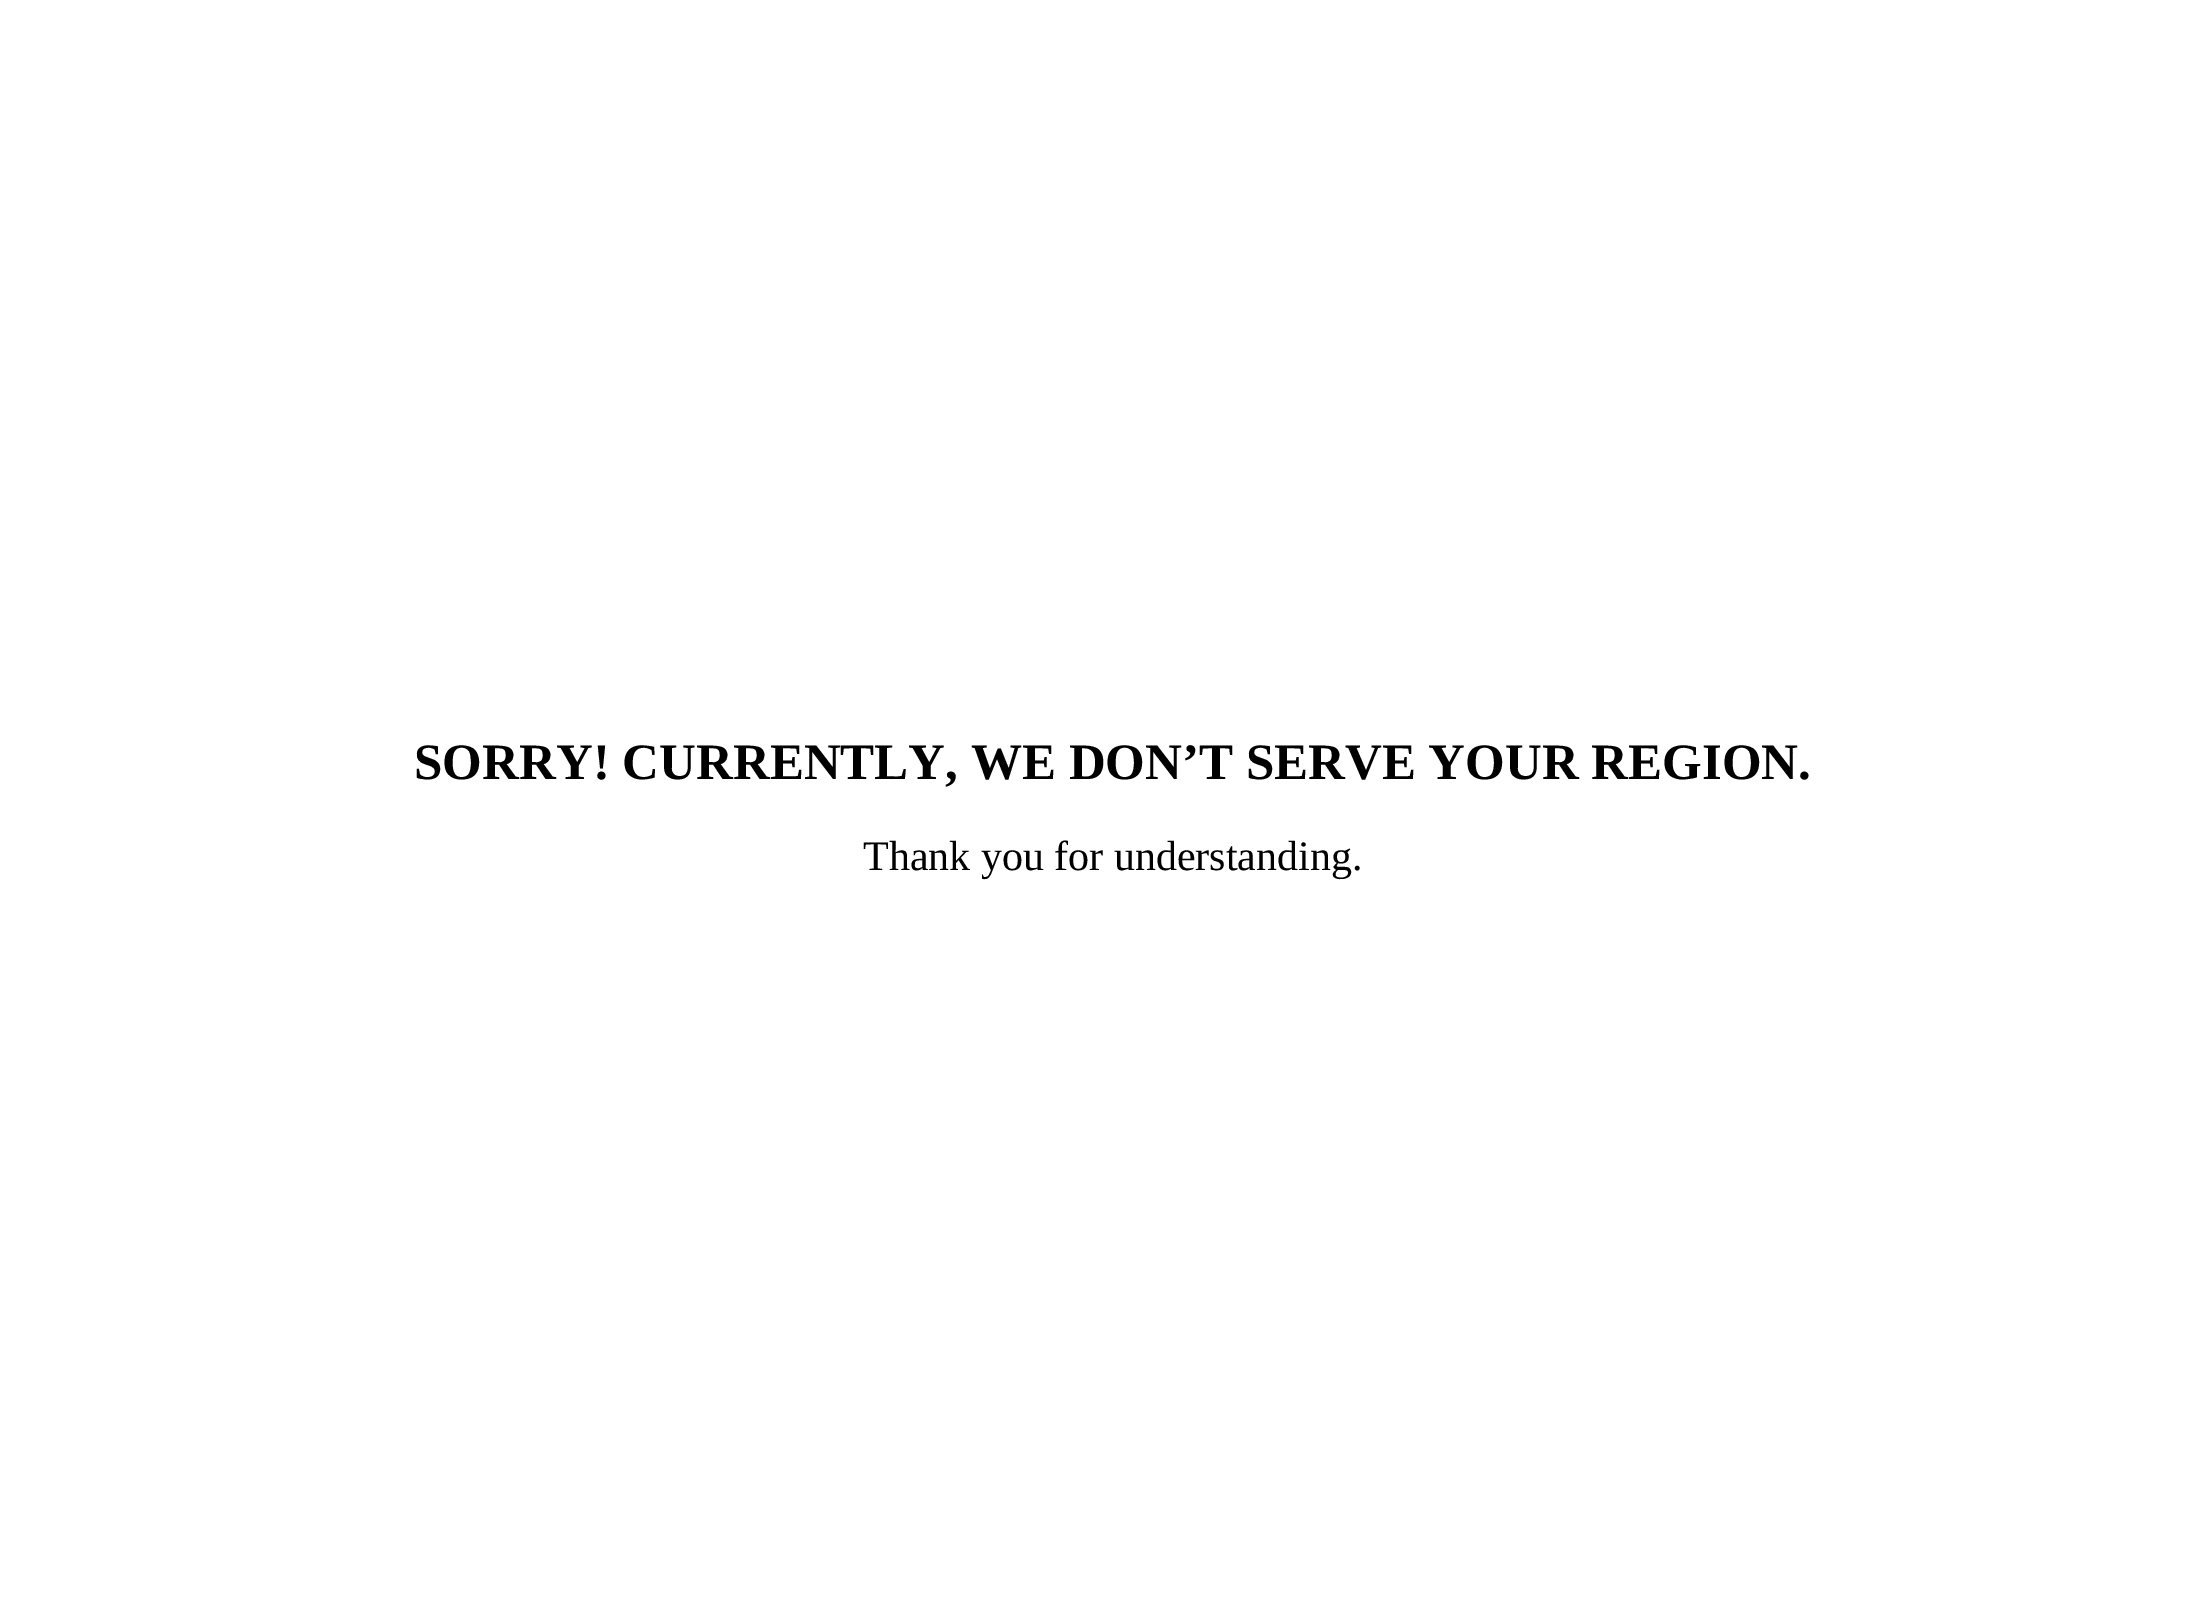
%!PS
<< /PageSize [2196 1603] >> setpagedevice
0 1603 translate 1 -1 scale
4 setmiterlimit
1 setgray
0 0 2196 1603 rectfill
/LiberationSerif-Bold [51 0 0 -51 0 0] selectfont
0 setgray
414 779 moveto (SORRY! CURRENTLY, WE DON’T SERVE YOUR REGION.) show
/LiberationSerif-Regular [42 0 0 -42 0 0] selectfont
863 870 moveto (Thank you for understanding.) show
showpage
